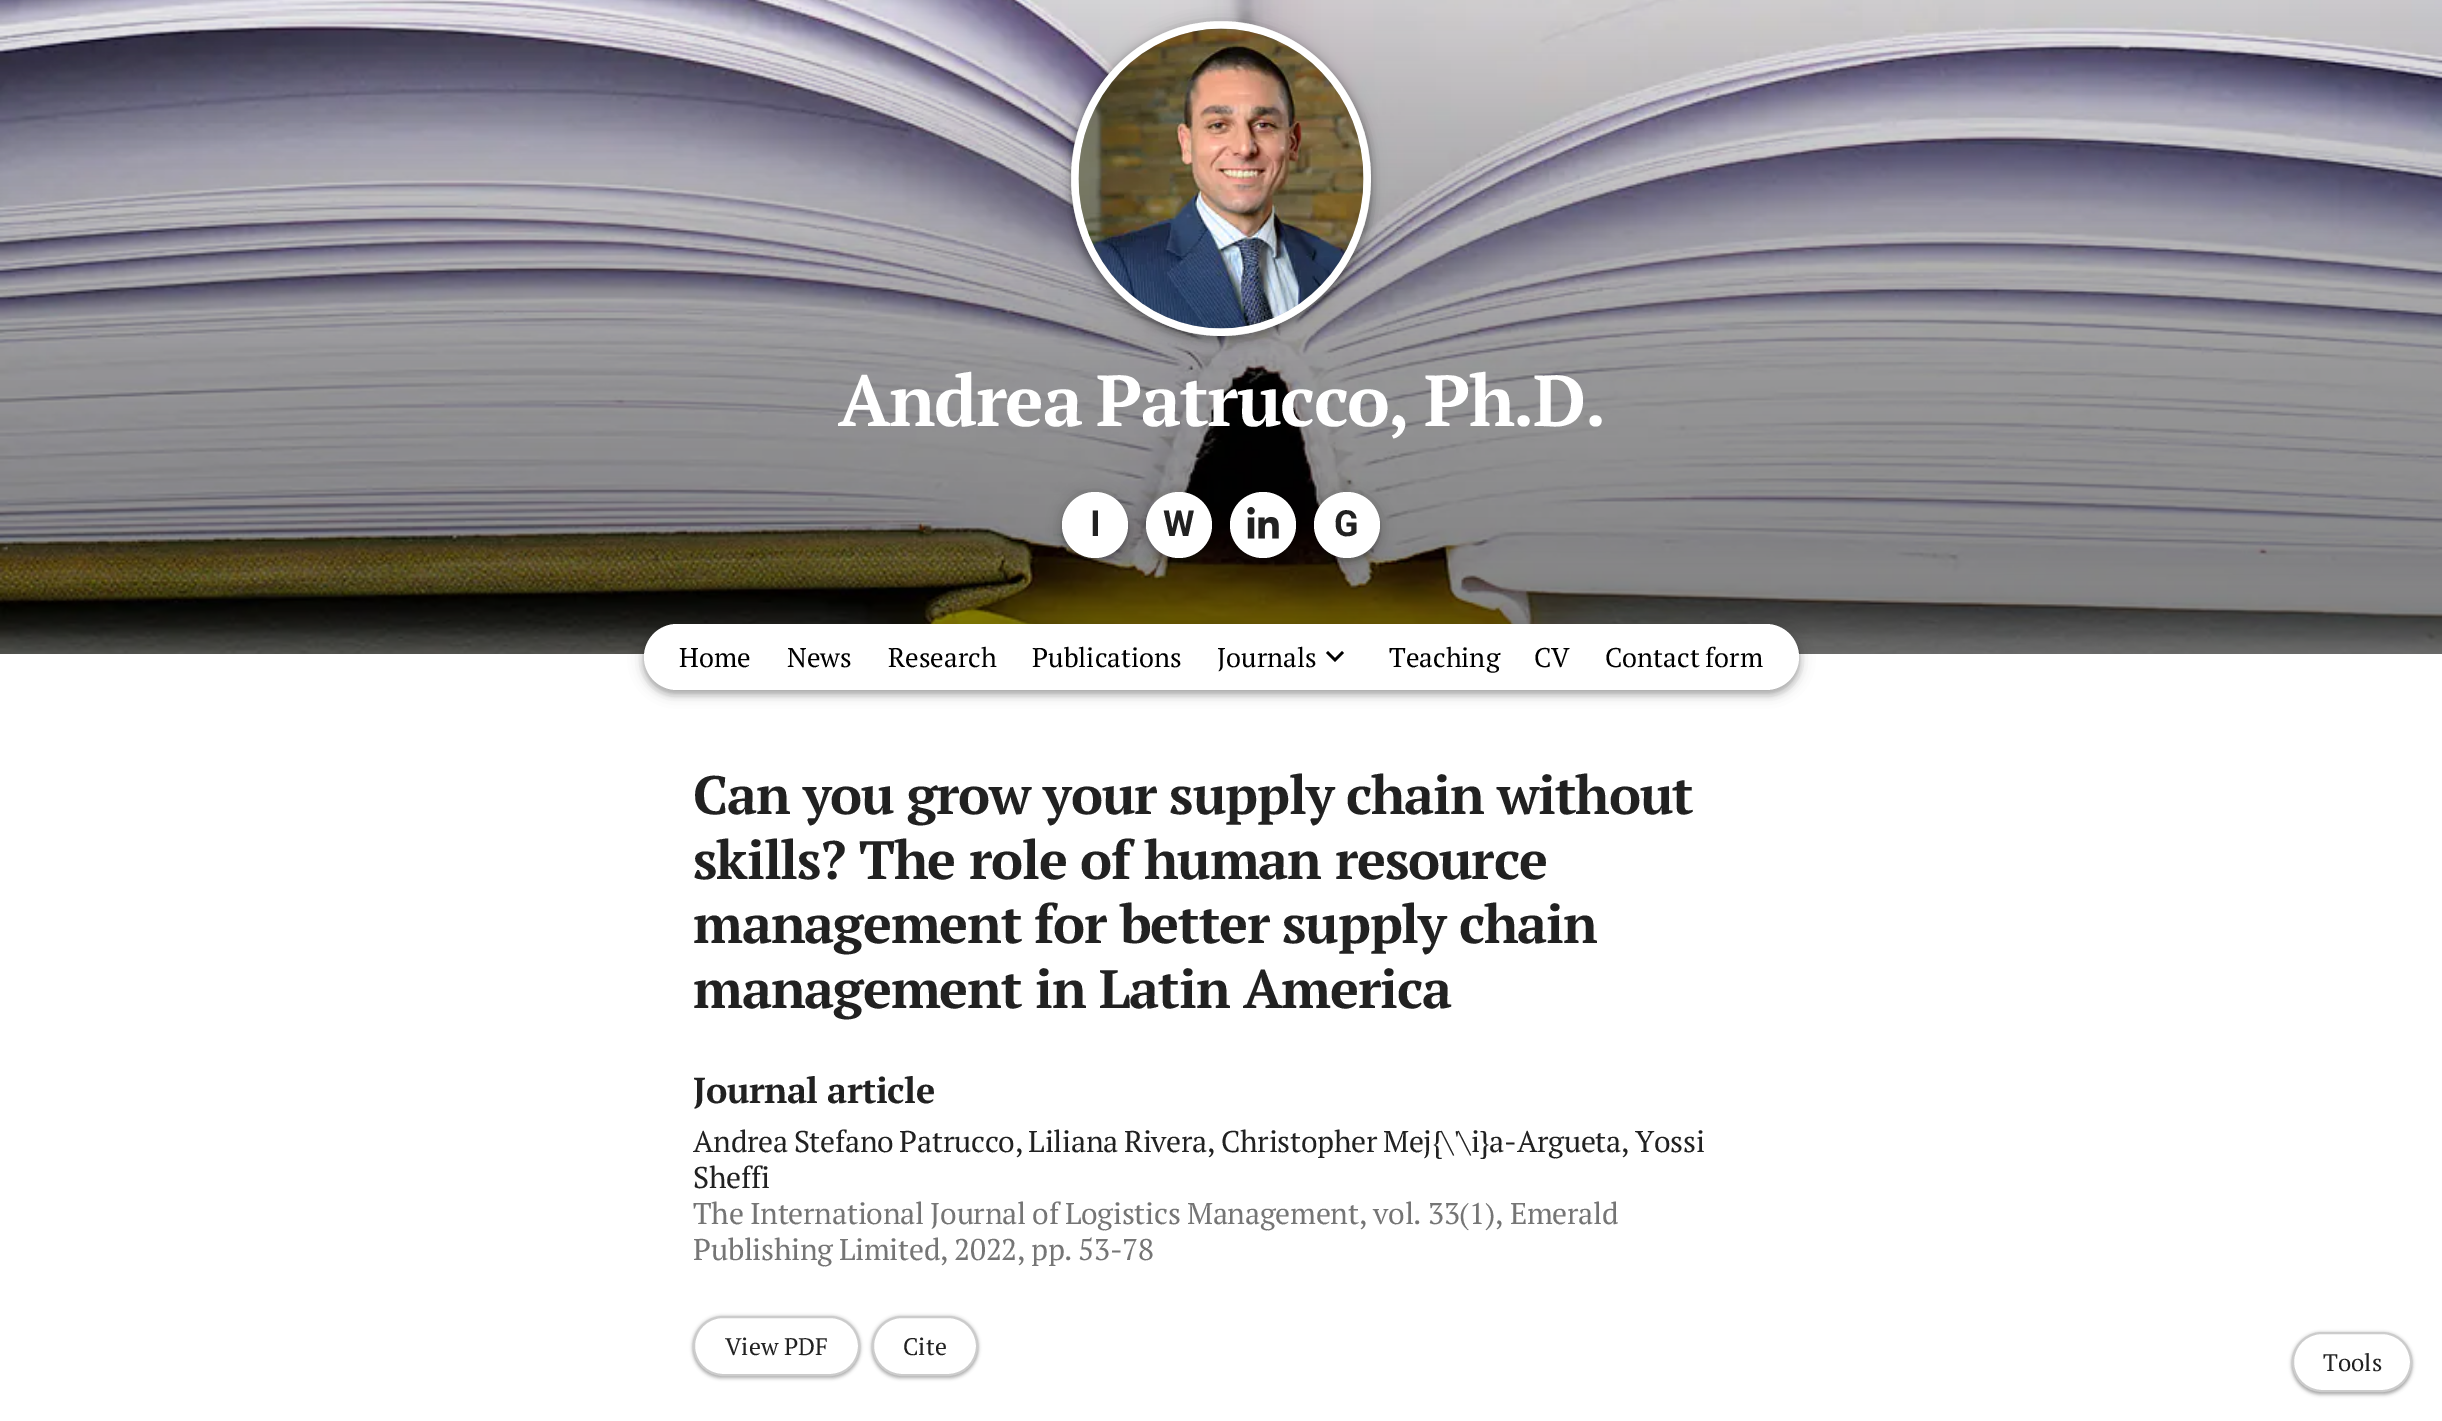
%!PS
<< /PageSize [2442 1421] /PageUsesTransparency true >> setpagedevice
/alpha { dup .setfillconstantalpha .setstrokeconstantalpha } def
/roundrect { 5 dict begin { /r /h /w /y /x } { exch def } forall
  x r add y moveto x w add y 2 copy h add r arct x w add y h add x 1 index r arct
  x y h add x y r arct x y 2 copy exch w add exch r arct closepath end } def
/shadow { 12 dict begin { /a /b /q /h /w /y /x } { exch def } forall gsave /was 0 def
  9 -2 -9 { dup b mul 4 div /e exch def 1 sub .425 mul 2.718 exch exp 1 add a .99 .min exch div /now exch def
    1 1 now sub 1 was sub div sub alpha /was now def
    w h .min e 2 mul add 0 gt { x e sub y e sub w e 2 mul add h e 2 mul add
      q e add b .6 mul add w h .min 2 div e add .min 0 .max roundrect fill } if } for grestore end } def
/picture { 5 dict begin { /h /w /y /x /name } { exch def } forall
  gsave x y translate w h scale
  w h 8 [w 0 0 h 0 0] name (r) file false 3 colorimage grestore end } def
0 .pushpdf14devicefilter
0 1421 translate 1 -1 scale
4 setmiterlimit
1 setgray
0 0 2442 1421 rectfill
(img1.rgb) 0 0 2442 654 picture
0 setgray
1071 23 300 315 150 7.5 0.2 shadow
1071 27 300 315 150 4 0.12 shadow
1071 24 300 315 150 3 0.14 shadow
0.8 setgray
newpath 1221 21 moveto 1304 21 1371 91.5 1371 178.5 curveto 1371 265.5 1304 336 1221 336 curveto 1138 336 1071 265.5 1071 178.5 curveto 1071 91.5 1138 21 1221 21 curveto closepath fill
1 setgray
7.5 setlinewidth
newpath 1221 25 moveto 1302 25 1367 93.5 1367 178.5 curveto 1367 263.5 1302 332 1221 332 curveto 1140 332 1075 263.5 1075 178.5 curveto 1075 93.5 1140 25 1221 25 curveto closepath stroke
(img2.rgb) 1078 28 286 301 picture
/PTSerif-Bold [72 0 0 -72 0 0] selectfont
838 426 moveto -3 0 32 -1.4 0 (Andrea Patrucco, Ph.D.) awidthshow
0 setgray
1062 494 66 66 33 7.5 0.2 shadow
1062 498 66 66 33 4 0.12 shadow
1062 495 66 66 33 3 0.14 shadow
1 setgray
newpath 1095 525 33 0 360 arc closepath fill
/Roboto-Bold [36 0 0 -36 0 0] selectfont
0.129 setgray
1090 536 moveto (I) show
0 setgray
1146 494 66 66 33 7.5 0.2 shadow
1146 498 66 66 33 4 0.12 shadow
1146 495 66 66 33 3 0.14 shadow
1 setgray
newpath 1179 525 33 0 360 arc closepath fill
0.129 setgray
1163 536 moveto (W) show
1 setgray
newpath 1263 525 33 0 360 arc closepath fill
(img3.rgb) 1247 507 32 32 picture
0 setgray
1314 494 66 66 33 7.5 0.2 shadow
1314 498 66 66 33 4 0.12 shadow
1314 495 66 66 33 3 0.14 shadow
1 setgray
newpath 1347 525 33 0 360 arc closepath fill
0.129 setgray
1334 536 moveto (G) show
0 setgray
644 626 1155 66 33 7.5 0.2 shadow
644 630 1155 66 33 4 0.12 shadow
644 627 1155 66 33 3 0.14 shadow
1 setgray
644 624 1155 66 33 roundrect fill
/PTSerif-Regular [27 0 0 -27 0 0] selectfont
0 setgray
679 667 moveto (Home) show
787 667 moveto (News) show
888 667 moveto (Research) show
1032 667 moveto (Publications) show
1217 667 moveto (Journals) show
newpath 1335 662 moveto 1326 653 lineto 1328 651 lineto 1335 658 lineto 1342 651 lineto 1344 653 lineto closepath fill
1389 667 moveto (Teaching) show
1534 667 moveto (CV) show
1605 667 moveto -1 0 32 (Contact form) widthshow
/PTSerif-Bold [54 0 0 -54 0 0] selectfont
0.129 setgray
693 814 moveto -0.5 0 32 -1.1 0 (Can you grow your supply chain without) awidthshow
693 879 moveto -1.1 0 (skills? The role of human resource) ashow
693 943 moveto -0.5 0 32 -1.1 0 (management for better supply chain) awidthshow
693 1008 moveto -1.1 0 (management in Latin America) ashow
/PTSerif-Bold [36 0 0 -36 0 0] selectfont
693 1103 moveto -0.4 0 (Journal article) ashow
/PTSerif-Regular [30 0 0 -30 0 0] selectfont
693 1152 moveto -1.25 0 32 -0.3 0 (Andrea Stefano Patrucco, Liliana Rivera, Christopher Mej{\\'\\i}a-Argueta, Yossi) awidthshow
693 1188 moveto -0.3 0 (Sheffi) ashow
0.459 setgray
693 1224 moveto -0.5 0 32 -0.3 0 (The International Journal of Logistics Management, vol. 33\(1\), Emerald) awidthshow
693 1260 moveto -1 0 32 -0.3 0 (Publishing Limited, 2022, pp. 53-78) awidthshow
0 setgray
693 1317 167 60 30 2 0.2 shadow
693 1319 167 60 30 1.5 0.12 shadow
693 1316 167 60 30 1.5 0.14 shadow
1 setgray
694 1317 165 58 29 roundrect gsave fill grestore
0.8 setgray
2 setlinewidth
stroke
/PTSerif-Regular [24 0 0 -24 0 0] selectfont
0.129 setgray
725 1355 moveto (View PDF) show
0 setgray
872 1317 106 60 30 2 0.2 shadow
872 1319 106 60 30 1.5 0.12 shadow
872 1316 106 60 30 1.5 0.14 shadow
1 setgray
873 1317 104 58 29 roundrect gsave fill grestore
0.8 setgray
stroke
0.129 setgray
903 1355 moveto (Cite) show
0 setgray
2292 1334 120 60 30 2 0.2 shadow
2292 1335 120 60 30 1.5 0.12 shadow
2292 1332 120 60 30 1.5 0.14 shadow
1 setgray
2293 1333 118 58 29 roundrect gsave fill grestore
0.8 setgray
stroke
0.129 setgray
2323 1371 moveto (Tools) show
.poppdf14devicefilter showpage
